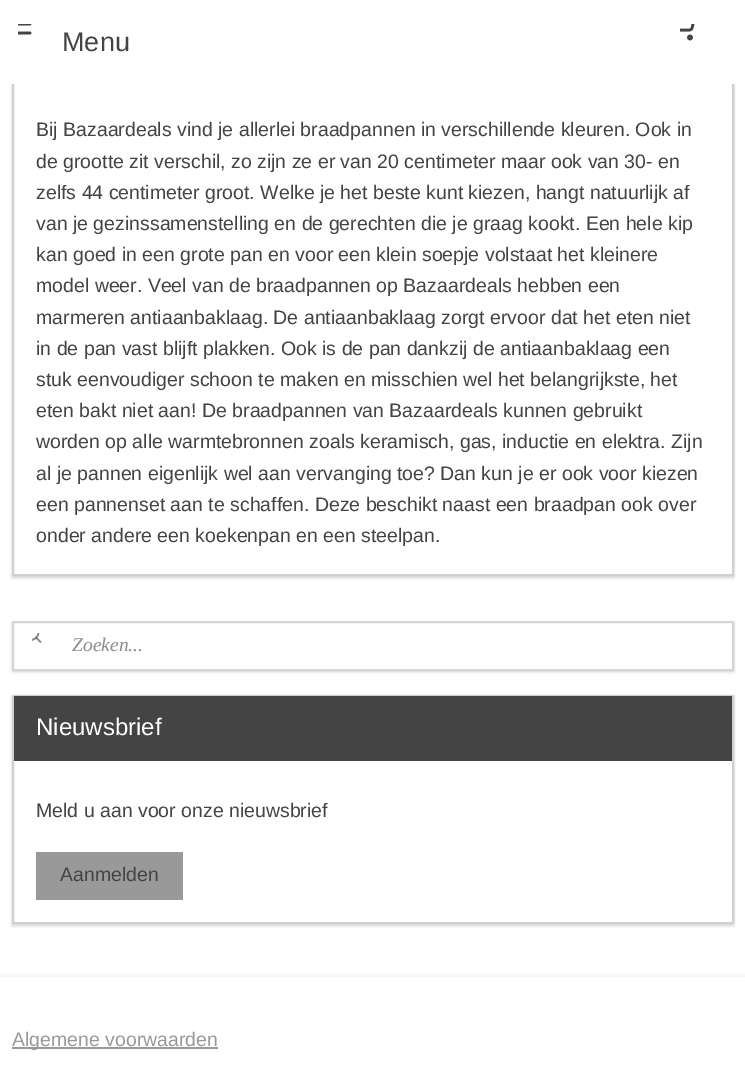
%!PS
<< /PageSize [745 1072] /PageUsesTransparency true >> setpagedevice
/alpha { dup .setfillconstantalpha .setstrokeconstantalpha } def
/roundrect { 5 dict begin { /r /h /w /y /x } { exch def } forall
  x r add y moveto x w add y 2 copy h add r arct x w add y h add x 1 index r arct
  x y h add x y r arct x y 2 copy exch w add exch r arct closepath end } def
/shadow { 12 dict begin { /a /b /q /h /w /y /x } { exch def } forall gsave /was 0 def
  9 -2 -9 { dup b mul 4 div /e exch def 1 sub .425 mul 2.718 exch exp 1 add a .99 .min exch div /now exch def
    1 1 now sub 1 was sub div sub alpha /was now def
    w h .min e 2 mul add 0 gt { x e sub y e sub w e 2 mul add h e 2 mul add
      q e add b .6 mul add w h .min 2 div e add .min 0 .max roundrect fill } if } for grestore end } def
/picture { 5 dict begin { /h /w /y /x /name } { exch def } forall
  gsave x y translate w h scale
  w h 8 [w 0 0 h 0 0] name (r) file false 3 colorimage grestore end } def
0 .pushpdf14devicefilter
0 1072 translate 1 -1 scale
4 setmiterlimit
1 setgray
0 0 745 1072 rectfill
gsave
newpath 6 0 moveto 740 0 lineto 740 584 lineto 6 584 lineto closepath 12 -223 moveto 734 -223 lineto 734 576 lineto 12 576 lineto closepath eoclip newpath
0 setgray
12 -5 722 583 0 1.5 0.15 shadow
grestore
0.816 setgray
2 setlinewidth
13 -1 720 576 rectstroke
1 setgray
10 0 726 84 rectfill
(img1.rgb) 18 24 14 11 picture
/LiberationSans-Regular [27 0 0 -27 0 0] selectfont
0.267 setgray
62 51 moveto (Menu) show
(img2.rgb) 680 24 15 17 picture
/LiberationSans-Regular [19.5 0 0 -19.5 0 0] selectfont
36 136 moveto (Bij Bazaardeals vind je allerlei braadpannen in verschillende kleuren. Ook in) show
36 168 moveto (de grootte zit verschil, zo zijn ze er van 20 centimeter maar ook van 30- en) show
36 199 moveto (zelfs 44 centimeter groot. Welke je het beste kunt kiezen, hangt natuurlijk af) show
36 230 moveto (van je gezinssamenstelling en de gerechten die je graag kookt. Een hele kip) show
36 261 moveto (kan goed in een grote pan en voor een klein soepje volstaat het kleinere) show
36 292 moveto (model weer. Veel van de braadpannen op Bazaardeals hebben een) show
36 324 moveto (marmeren antiaanbaklaag. De antiaanbaklaag zorgt ervoor dat het eten niet) show
36 355 moveto (in de pan vast blijft plakken. Ook is de pan dankzij de antiaanbaklaag een) show
36 386 moveto (stuk eenvoudiger schoon te maken en misschien wel het belangrijkste, het) show
36 417 moveto (eten bakt niet aan! De braadpannen van Bazaardeals kunnen gebruikt) show
36 448 moveto (worden op alle warmtebronnen zoals keramisch, gas, inductie en elektra. Zijn) show
36 480 moveto (al je pannen eigenlijk wel aan vervanging toe? Dan kun je er ook voor kiezen) show
36 511 moveto (een pannenset aan te schaffen. Deze beschikt naast een braadpan ook over) show
36 542 moveto (onder andere een koekenpan en een steelpan.) show
0 setgray
12 623 722 49 0 1.5 0.15 shadow
1 setgray
newpath 13 622 moveto 733 622 lineto 733 670 lineto 13 670 lineto closepath gsave fill grestore
0.827 0.835 0.851 setrgbcolor
stroke
(img3.rgb) 32 633 10 10 picture
/LiberationSerif-Italic [19.5 0 0 -19.5 0 0] selectfont
0.537 0.549 0.569 setrgbcolor
72 651 moveto (Zoeken...) show
0 setgray
12 696 722 230 0 1.5 0.15 shadow
1 setgray
14 761 718 161 rectfill
0.816 setgray
13 696 720 227 rectstroke
0.267 setgray
14 696 718 65 rectfill
/LiberationSans-Regular [24 0 0 -24 0 0] selectfont
1 setgray
36 735 moveto (Nieuwsbrief) show
/LiberationSans-Regular [19.5 0 0 -19.5 0 0] selectfont
0.267 setgray
36 817 moveto (Meld u aan voor onze nieuwsbrief) show
0.6 setgray
36 852 147 48 rectfill
0.267 setgray
60 881 moveto (Aanmelden) show
0 setgray
0 975 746 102 0 1.5 0.05 shadow
1 setgray
0 977 745 95 rectfill
0.6 setgray
12 1047 206 2 rectfill
12 1046 moveto (Algemene voorwaarden) show
.poppdf14devicefilter showpage
